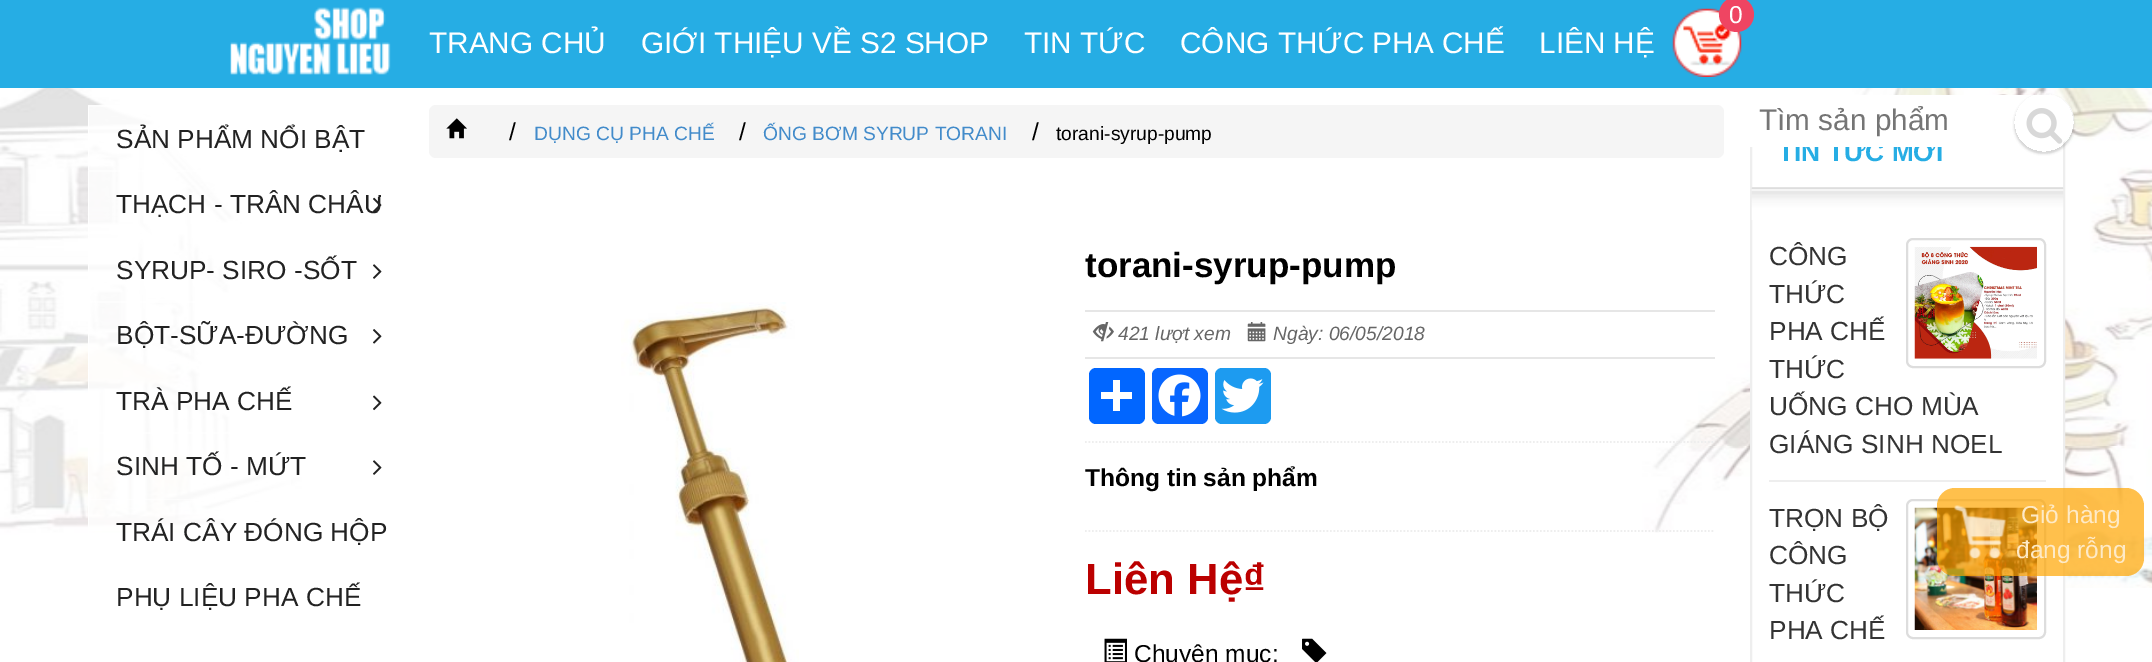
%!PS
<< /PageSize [2152 662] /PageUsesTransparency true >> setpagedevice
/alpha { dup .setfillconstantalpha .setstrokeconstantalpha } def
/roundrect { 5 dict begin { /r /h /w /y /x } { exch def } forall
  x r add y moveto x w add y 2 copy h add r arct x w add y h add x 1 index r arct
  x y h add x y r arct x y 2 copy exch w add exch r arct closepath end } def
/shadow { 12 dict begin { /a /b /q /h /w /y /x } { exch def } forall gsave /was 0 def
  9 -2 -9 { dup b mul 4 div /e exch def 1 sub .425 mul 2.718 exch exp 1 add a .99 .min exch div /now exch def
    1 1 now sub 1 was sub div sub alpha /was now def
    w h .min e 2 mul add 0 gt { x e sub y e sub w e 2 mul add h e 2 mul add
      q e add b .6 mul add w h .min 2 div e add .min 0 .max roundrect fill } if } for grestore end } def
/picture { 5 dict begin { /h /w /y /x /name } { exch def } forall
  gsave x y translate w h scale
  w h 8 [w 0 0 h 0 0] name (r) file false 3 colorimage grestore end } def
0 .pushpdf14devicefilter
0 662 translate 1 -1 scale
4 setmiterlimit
1 setgray
0 0 2152 662 rectfill
(img1.rgb) 0 88 2152 500 picture
0.149 0.678 0.894 setrgbcolor
0 0 2152 88 rectfill
(img2.rgb) 230 7 161 68 picture
/LiberationSans-Regular [29.75 0 0 -29.75 0 0] selectfont
1 setgray
429 53 moveto (TRANG CHỦ) show
641 53 moveto (GIỚI THIỆU VỀ S2 SHOP) show
1024 53 moveto (TIN TỨC) show
1180 53 moveto (CÔNG THỨC PHA CHẾ) show
1539 53 moveto (LIÊN HỆ) show
(img3.rgb) 1672 8 70 69 picture
0.937 0.271 0.384 setrgbcolor
newpath 1736.5 14.5 17.5 0 360 arc closepath fill
/LiberationSans-Regular [24.5 0 0 -24.5 0 0] selectfont
1 setgray
1729 23 moveto (0) show
1752 142 311 446 rectfill
0.933 setgray
2 setlinewidth
1751 124 313 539 rectstroke
/LiberationSans-Bold [26.25 0 0 -26.25 0 0] selectfont
0.149 0.678 0.894 setrgbcolor
1778 161 moveto (TIN TỨC MỚI) show
1 setgray
1724 95 350 52 26 roundrect fill
(img4.rgb) 2026 108 37 36 picture
gsave
newpath 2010 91 moveto 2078 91 lineto 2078 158 lineto 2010 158 lineto closepath 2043.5 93 moveto 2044.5 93 lineto 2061 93 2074 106 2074 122.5 curveto 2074 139 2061 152 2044.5 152 curveto 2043.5 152 lineto 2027 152 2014 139 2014 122.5 curveto 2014 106 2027 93 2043.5 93 curveto closepath eoclip newpath
0 setgray
2014 95 60 59 29.5 1 0.07 shadow
grestore
0.15 alpha
newpath 2044 94 moveto 2060 94 2074 108 2074 123 curveto 2074 117 2072 111 2069 106 curveto 2053 82 2013 94 2014 123 curveto 2014 108 2028 94 2044 94 curveto closepath fill
/LiberationSans-Regular [29.75 0 0 -29.75 0 0] selectfont
1 alpha
0.459 setgray
1759 130 moveto (Tìm sản phẩm) show
gsave
newpath 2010 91 moveto 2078 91 lineto 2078 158 lineto 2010 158 lineto closepath 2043.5 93 moveto 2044.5 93 lineto 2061 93 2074 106 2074 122.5 curveto 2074 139 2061 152 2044.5 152 curveto 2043.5 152 lineto 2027 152 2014 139 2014 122.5 curveto 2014 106 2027 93 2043.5 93 curveto closepath eoclip newpath
0 setgray
2014 95 60 59 29.5 1 0.07 shadow
grestore
0.15 alpha
1 setgray
newpath 2044 94 moveto 2060 94 2074 108 2074 123 curveto 2074 117 2072 111 2069 106 curveto 2053 82 2013 94 2014 123 curveto 2014 108 2028 94 2044 94 curveto closepath fill
0.8 alpha
88 105 203 426 rectfill
0.5 alpha
newpath 88 105 moveto 402 105 lineto 402 107 lineto 89 107 lineto closepath fill
1 alpha
newpath 88 170 moveto 88 105 lineto 89 107 lineto 89 170 lineto closepath fill
/LiberationSans-Regular [26.25 0 0 -26.25 0 0] selectfont
0.133 setgray
116 148 moveto (SẢN PHẨM NỔI BẬT) show
0.5 alpha
1 setgray
newpath 88 170 moveto 402 170 lineto 402 172 lineto 89 172 lineto closepath fill
1 alpha
newpath 88 236 moveto 88 170 lineto 89 172 lineto 89 236 lineto closepath fill
0.133 setgray
116 213 moveto (THẠCH - TRÂN CHÂU) show
(img5.rgb) 373 197 9 15 picture
1 setgray
newpath 88 301 moveto 88 236 lineto 89 238 lineto 89 301 lineto closepath fill
0.133 setgray
116 279 moveto (SYRUP- SIRO -SỐT) show
(img6.rgb) 373 264 9 15 picture
0.5 alpha
1 setgray
newpath 88 301 moveto 402 301 lineto 402 303 lineto 89 303 lineto closepath fill
1 alpha
newpath 88 368 moveto 88 301 lineto 89 303 lineto 89 368 lineto closepath fill
0.133 setgray
116 344 moveto (BỘT-SỮA-ĐƯỜNG) show
(img7.rgb) 373 329 9 15 picture
1 setgray
newpath 88 432 moveto 88 368 lineto 89 369 lineto 89 432 lineto closepath fill
0.133 setgray
116 410 moveto (TRÀ PHA CHẾ) show
(img8.rgb) 373 395 9 16 picture
0.5 alpha
1 setgray
newpath 88 432 moveto 402 432 lineto 402 434 lineto 89 434 lineto closepath fill
1 alpha
newpath 88 499 moveto 88 432 lineto 89 434 lineto 89 499 lineto closepath fill
0.133 setgray
116 475 moveto (SINH TỐ - MỨT) show
(img6.rgb) 373 460 9 15 picture
0.5 alpha
1 setgray
newpath 88 499 moveto 402 499 lineto 402 500 lineto 89 500 lineto closepath fill
1 alpha
newpath 88 564 moveto 88 499 lineto 89 500 lineto 89 564 lineto closepath fill
0.133 setgray
116 541 moveto (TRÁI CÂY ĐÓNG HỘP) show
116 606 moveto (PHỤ LIỆU PHA CHẾ) show
0.961 setgray
429 105 1295 53 7 roundrect fill
(img9.rgb) 446 118 21 21 picture
/LiberationSans-Regular [24.5 0 0 -24.5 0 0] selectfont
0 setgray
509 140 moveto (/) show
/LiberationSans-Regular [19.25 0 0 -19.25 0 0] selectfont
0.259 0.545 0.792 setrgbcolor
534 140 moveto (DỤNG CỤ PHA CHẾ) show
/LiberationSans-Regular [24.5 0 0 -24.5 0 0] selectfont
0 setgray
739 140 moveto (/) show
/LiberationSans-Regular [19.25 0 0 -19.25 0 0] selectfont
0.259 0.545 0.792 setrgbcolor
763 140 moveto (ỐNG BƠM SYRUP TORANI) show
/LiberationSans-Regular [24.5 0 0 -24.5 0 0] selectfont
0 setgray
1032 140 moveto (/) show
/LiberationSans-Regular [19.25 0 0 -19.25 0 0] selectfont
1056 140 moveto (torani-syrup-pump) show
(img10.rgb) 621 302 178 360 picture
/LiberationSans-Bold [35 0 0 -35 0 0] selectfont
1085 277 moveto (torani-syrup-pump) show
0.902 setgray
1085 310 630 2 rectfill
1085 357 630 2 rectfill
(img11.rgb) 1092 322 22 20 picture
/LiberationSans-Italic [19.25 0 0 -19.25 0 0] selectfont
0.4 setgray
1118 340 moveto (421 lượt xem) show
(img12.rgb) 1247 322 19 20 picture
1273 340 moveto (Ngày: 06/05/2018) show
0.004 0.4 1 setrgbcolor
1089 368 56 56 7 roundrect fill
1 setgray
1113 380 7 31 rectfill
1101 392 31 7 rectfill
0.031 0.4 1 setrgbcolor
1152 368 56 56 7 roundrect fill
(img13.rgb) 1158 374 43 43 picture
0.114 0.608 0.941 setrgbcolor
1215 368 56 56 7 roundrect fill
(img14.rgb) 1221 378 43 35 picture
0.933 setgray
1.8 setlinewidth
[1.75 1.75] 0 setdash
newpath 1085 442 moveto 1715 442 lineto stroke
newpath 1085 531 moveto 1715 531 lineto stroke
/LiberationSans-Bold [24.5 0 0 -24.5 0 0] selectfont
0 setgray
1085 486 moveto (Thông tin sản phẩm) show
/LiberationSans-Bold [43.75 0 0 -43.75 0 0] selectfont
0.733 0 0 setrgbcolor
1085 594 moveto (Liên Hệ₫) show
(img15.rgb) 1104 638 23 24 picture
/LiberationSans-Regular [24.5 0 0 -24.5 0 0] selectfont
0 setgray
1134 662 moveto (Chuyên mục:) show
(img16.rgb) 1302 638 25 24 picture
(img17.rgb) 1751 187 313 33 picture
0.933 setgray
1769 480 277 2 rectfill
/LiberationSans-Regular [26.25 0 0 -26.25 0 0] selectfont
0.2 setgray
1769 265 moveto (CÔNG) show
0.867 setgray
2 setlinewidth
[] 0 setdash
1907 239 138 128 6 roundrect stroke
(img18.rgb) 1914 246 123 113 picture
0.2 setgray
1769 303 moveto (THỨC) show
1769 340 moveto (PHA CHẾ) show
1769 378 moveto (THỨC) show
1769 415 moveto (UỐNG CHO MÙA) show
1769 453 moveto (GIÁNG SINH NOEL) show
1769 527 moveto (TRỌN BỘ) show
0.867 setgray
1907 500 138 138 6 roundrect stroke
(img19.rgb) 1914 507 123 123 picture
0.2 setgray
1769 564 moveto (CÔNG) show
1769 602 moveto (THỨC) show
1769 639 moveto (PHA CHẾ) show
0.7 alpha
1 0.647 0 setrgbcolor
1937 488 207 88 18 roundrect fill
1 alpha
(img20.rgb) 1954 505 53 54 picture
/LiberationSans-Regular [24.5 0 0 -24.5 0 0] selectfont
0.996 0.918 0.78 setrgbcolor
2021 523 moveto (Giỏ hàng) show
2016 558 moveto (đang rỗng) show
.poppdf14devicefilter showpage
